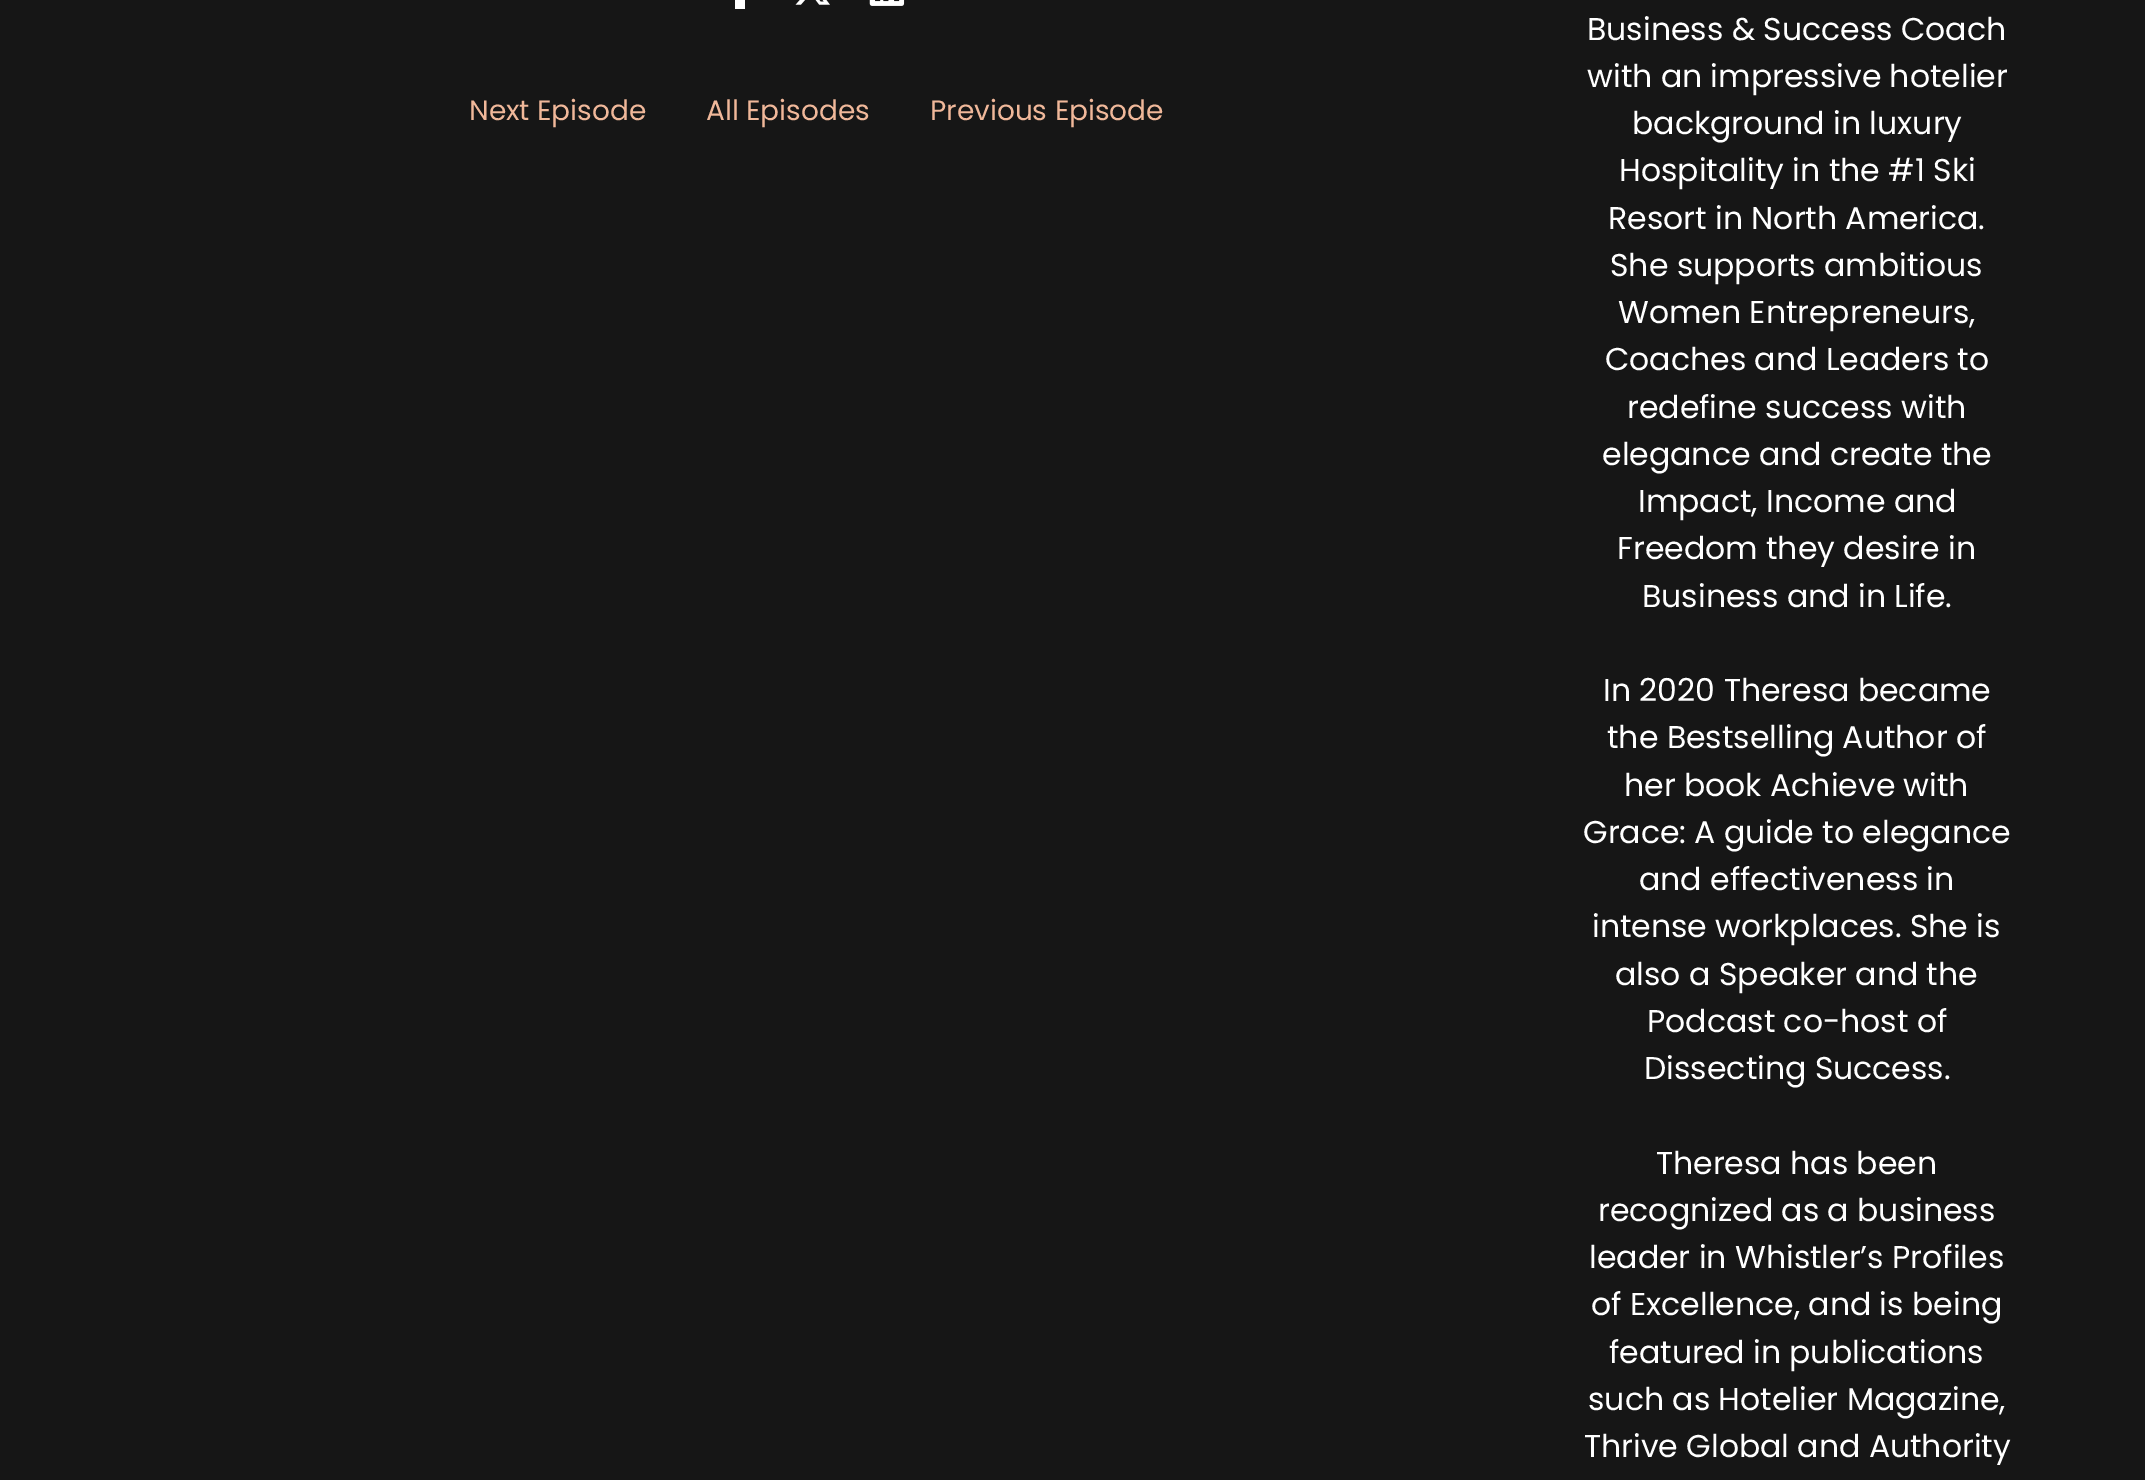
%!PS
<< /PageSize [2145 1480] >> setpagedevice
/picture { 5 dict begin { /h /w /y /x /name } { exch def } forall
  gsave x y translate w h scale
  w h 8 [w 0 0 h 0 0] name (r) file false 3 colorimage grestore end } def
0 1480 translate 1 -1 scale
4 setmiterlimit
0.086 setgray
0 0 2145 1480 rectfill
1 setgray
735 0 10 9 rectfill
(img1.rgb) 795 0 35 5 picture
(img2.rgb) 869 0 36 6 picture
/Poppins-Regular [28 0 0 -28 0 0] selectfont
0.941 0.722 0.604 setrgbcolor
469 120 moveto (Next Episode) show
706 120 moveto (All Episodes) show
930 120 moveto (Previous Episode) show
/Poppins-Regular [31.5 0 0 -31.5 0 0] selectfont
1 setgray
1587 40 moveto (Business & Success Coach) show
1587 87 moveto (with an impressive hotelier) show
1632 134 moveto (background in luxury) show
1619 181 moveto (Hospitality in the #1 Ski) show
1608 229 moveto (Resort in North America.) show
1610 276 moveto (She supports ambitious) show
1618 323 moveto (Women Entrepreneurs,) show
1605 370 moveto (Coaches and Leaders to) show
1627 418 moveto (redefine success with) show
1602 465 moveto (elegance and create the) show
1638 512 moveto (Impact, Income and) show
1617 559 moveto (Freedom they desire in) show
1642 607 moveto (Business and in Life.) show
1603 701 moveto (In 2020 Theresa became) show
1607 748 moveto (the Bestselling Author of) show
1624 796 moveto (her book Achieve with) show
1583 843 moveto (Grace: A guide to elegance) show
1639 890 moveto (and effectiveness in) show
1592 937 moveto (intense workplaces. She is) show
1615 985 moveto (also a Speaker and the) show
1647 1032 moveto (Podcast co-host of) show
1644 1079 moveto (Dissecting Success.) show
1656 1174 moveto (Theresa has been) show
1598 1221 moveto (recognized as a business) show
1589 1268 moveto (leader in Whistler’s Profiles) show
1591 1315 moveto (of Excellence, and is being) show
1609 1363 moveto (featured in publications) show
1588 1410 moveto (such as Hotelier Magazine,) show
1584 1457 moveto (Thrive Global and Authority) show
showpage
